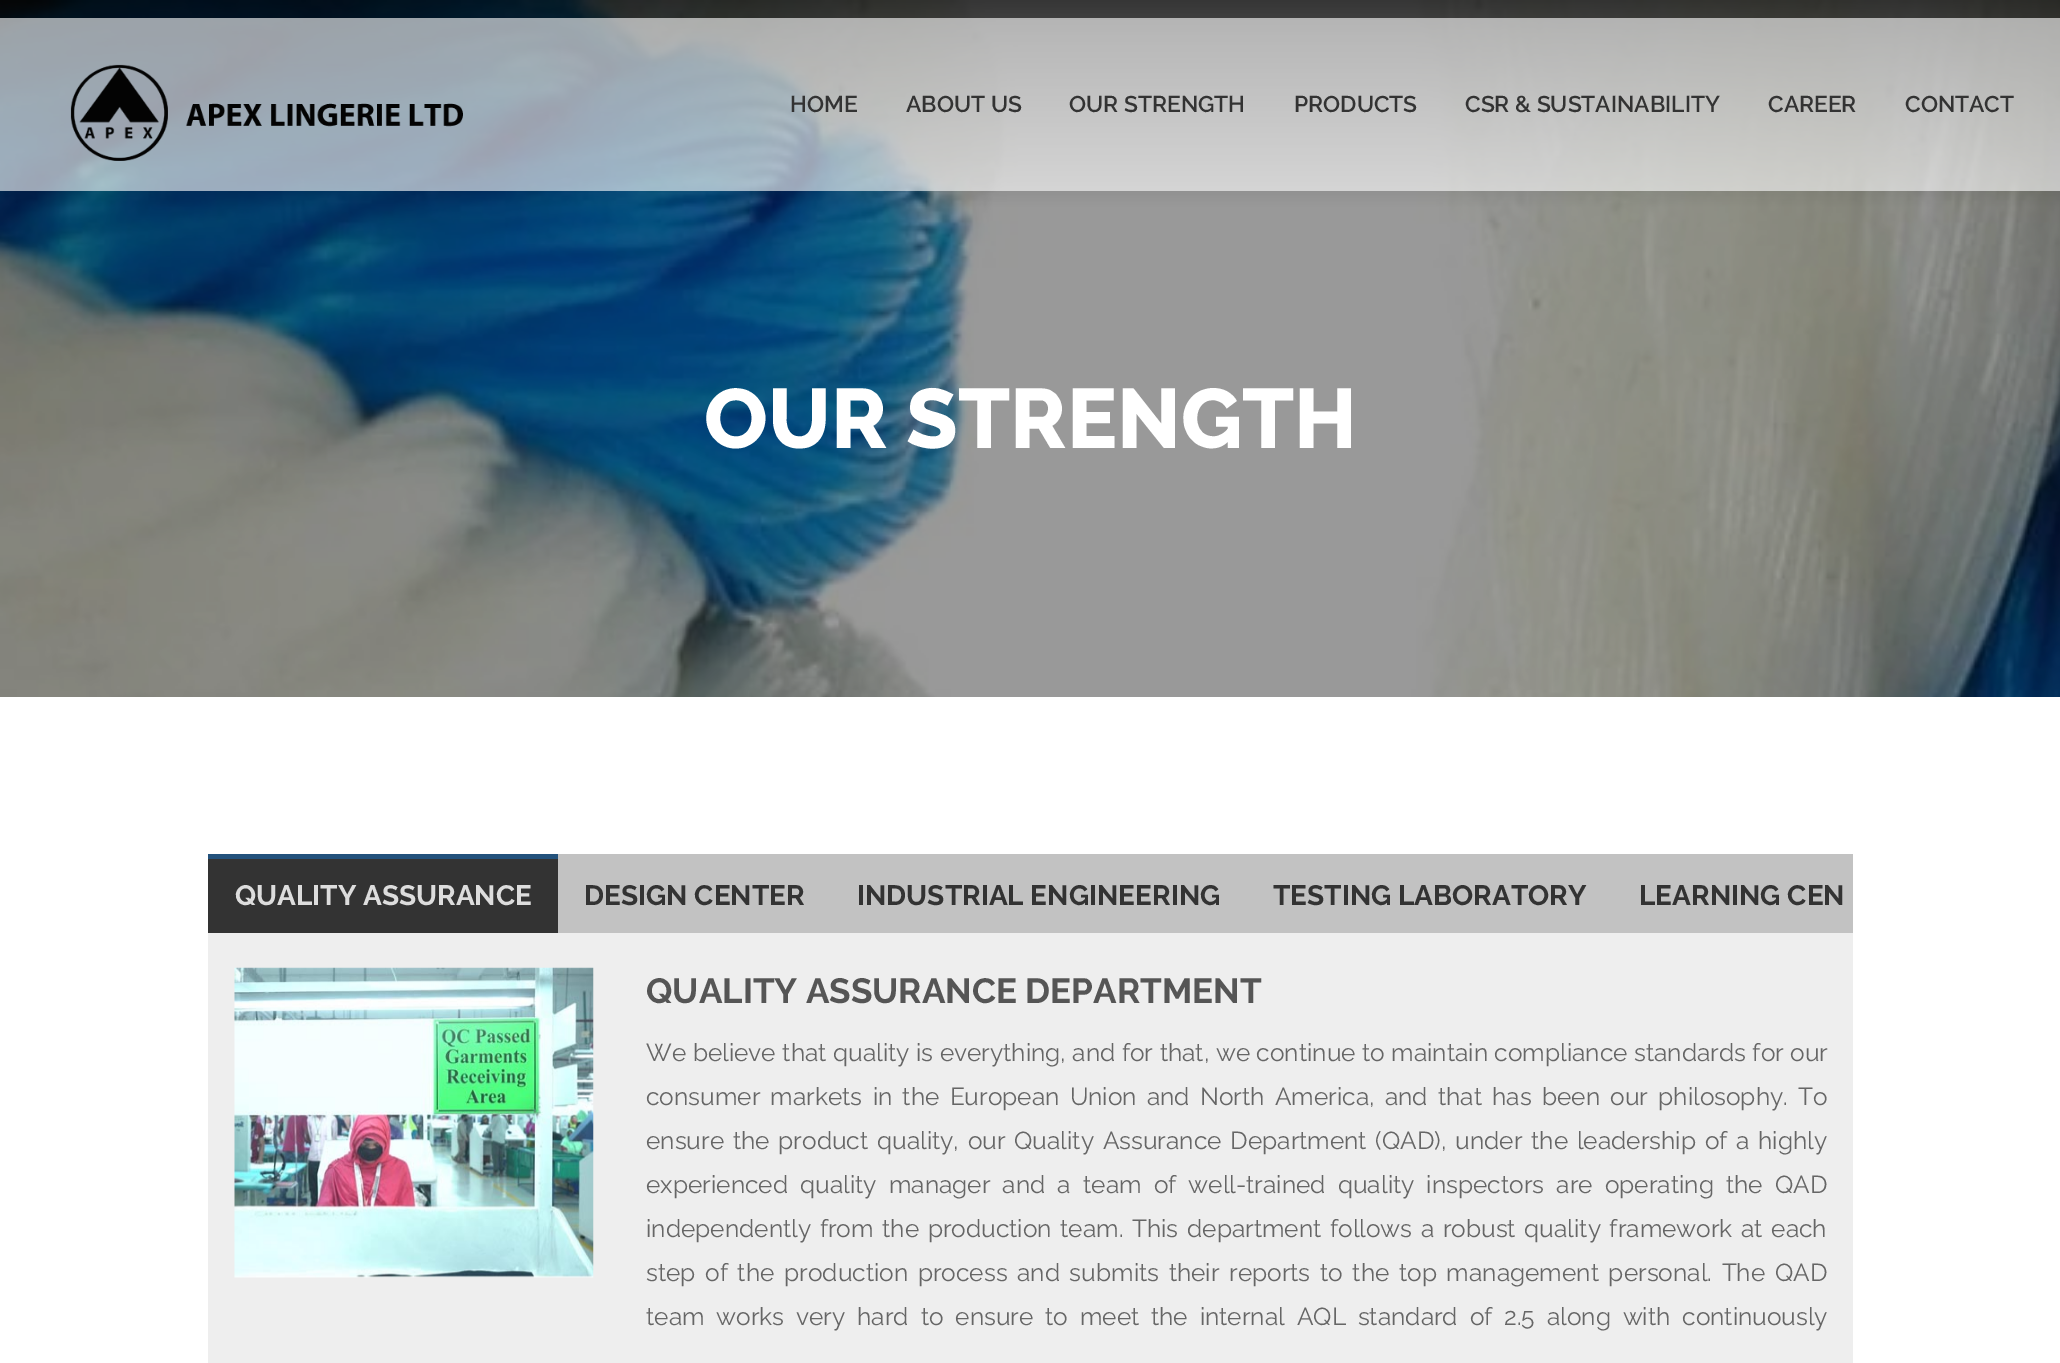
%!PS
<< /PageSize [2060 1363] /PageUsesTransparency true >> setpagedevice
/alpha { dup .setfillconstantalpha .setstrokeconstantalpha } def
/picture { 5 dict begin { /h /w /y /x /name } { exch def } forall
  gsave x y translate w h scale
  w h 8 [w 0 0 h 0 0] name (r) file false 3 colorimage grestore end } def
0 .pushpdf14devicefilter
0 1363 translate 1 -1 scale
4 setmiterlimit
1 setgray
0 0 2060 1363 rectfill
(img2.rgb) 0 0 2060 697 picture
0.61 alpha
0 18 2060 173 rectfill
1 alpha
(img1.rgb) 70 64 393 97 picture
/Raleway-SemiBold [22.75 0 0 -22.75 0 0] selectfont
0.2 setgray
790 112 moveto (HOME) show
906 112 moveto (ABOUT US) show
1069 112 moveto (OUR STRENGTH) show
1294 112 moveto (PRODUCTS) show
1465 112 moveto (CSR & SUSTAINABILITY) show
1768 112 moveto (CAREER) show
1905 112 moveto (CONTACT) show
/Raleway-ExtraBold [84 0 0 -84 0 0] selectfont
1 setgray
704 448 moveto (OUR STRENGTH) show
0.2 setgray
208 859 350 74 rectfill
0.137 0.322 0.486 setrgbcolor
208 854 350 5 rectfill
/Raleway-Bold [28 0 0 -28 0 0] selectfont
0.867 setgray
235 905 moveto (QUALITY ASSURANCE) show
0.761 setgray
558 854 1295 79 rectfill
0.2 setgray
584 905 moveto (DESIGN CENTER) show
857 905 moveto (INDUSTRIAL ENGINEERING) show
1273 905 moveto (TESTING LABORATORY) show
1639 905 moveto (LEARNING CEN) show
0.933 setgray
208 933 1645 430 rectfill
(img3.rgb) 234 967 360 311 picture
/Raleway-Bold [35 0 0 -35 0 0] selectfont
0.333 setgray
646 1003 moveto (QUALITY ASSURANCE DEPARTMENT) show
/Raleway-Regular [24.5 0 0 -24.5 0 0] selectfont
0.4 setgray
646 1061 moveto 0.25 0 32 (We believe that quality is everything, and for that, we continue to maintain compliance standards for our) widthshow
646 1105 moveto 4 0 32 (consumer markets in the European Union and North America, and that has been our philosophy. To) widthshow
646 1149 moveto 2.5 0 32 (ensure the product quality, our Quality Assurance Department \(QAD\), under the leadership of a highly) widthshow
646 1193 moveto 5.9 0 32 (experienced quality manager and a team of well-trained quality inspectors are operating the QAD) widthshow
646 1237 moveto 2.4 0 32 (independently from the production team. This department follows a robust quality framework at each) widthshow
646 1281 moveto 3.4 0 32 (step of the production process and submits their reports to the top management personal. The QAD) widthshow
646 1325 moveto 5.6 0 32 (team works very hard to ensure to meet the internal AQL standard of 2.5 along with continuously) widthshow
.poppdf14devicefilter showpage
